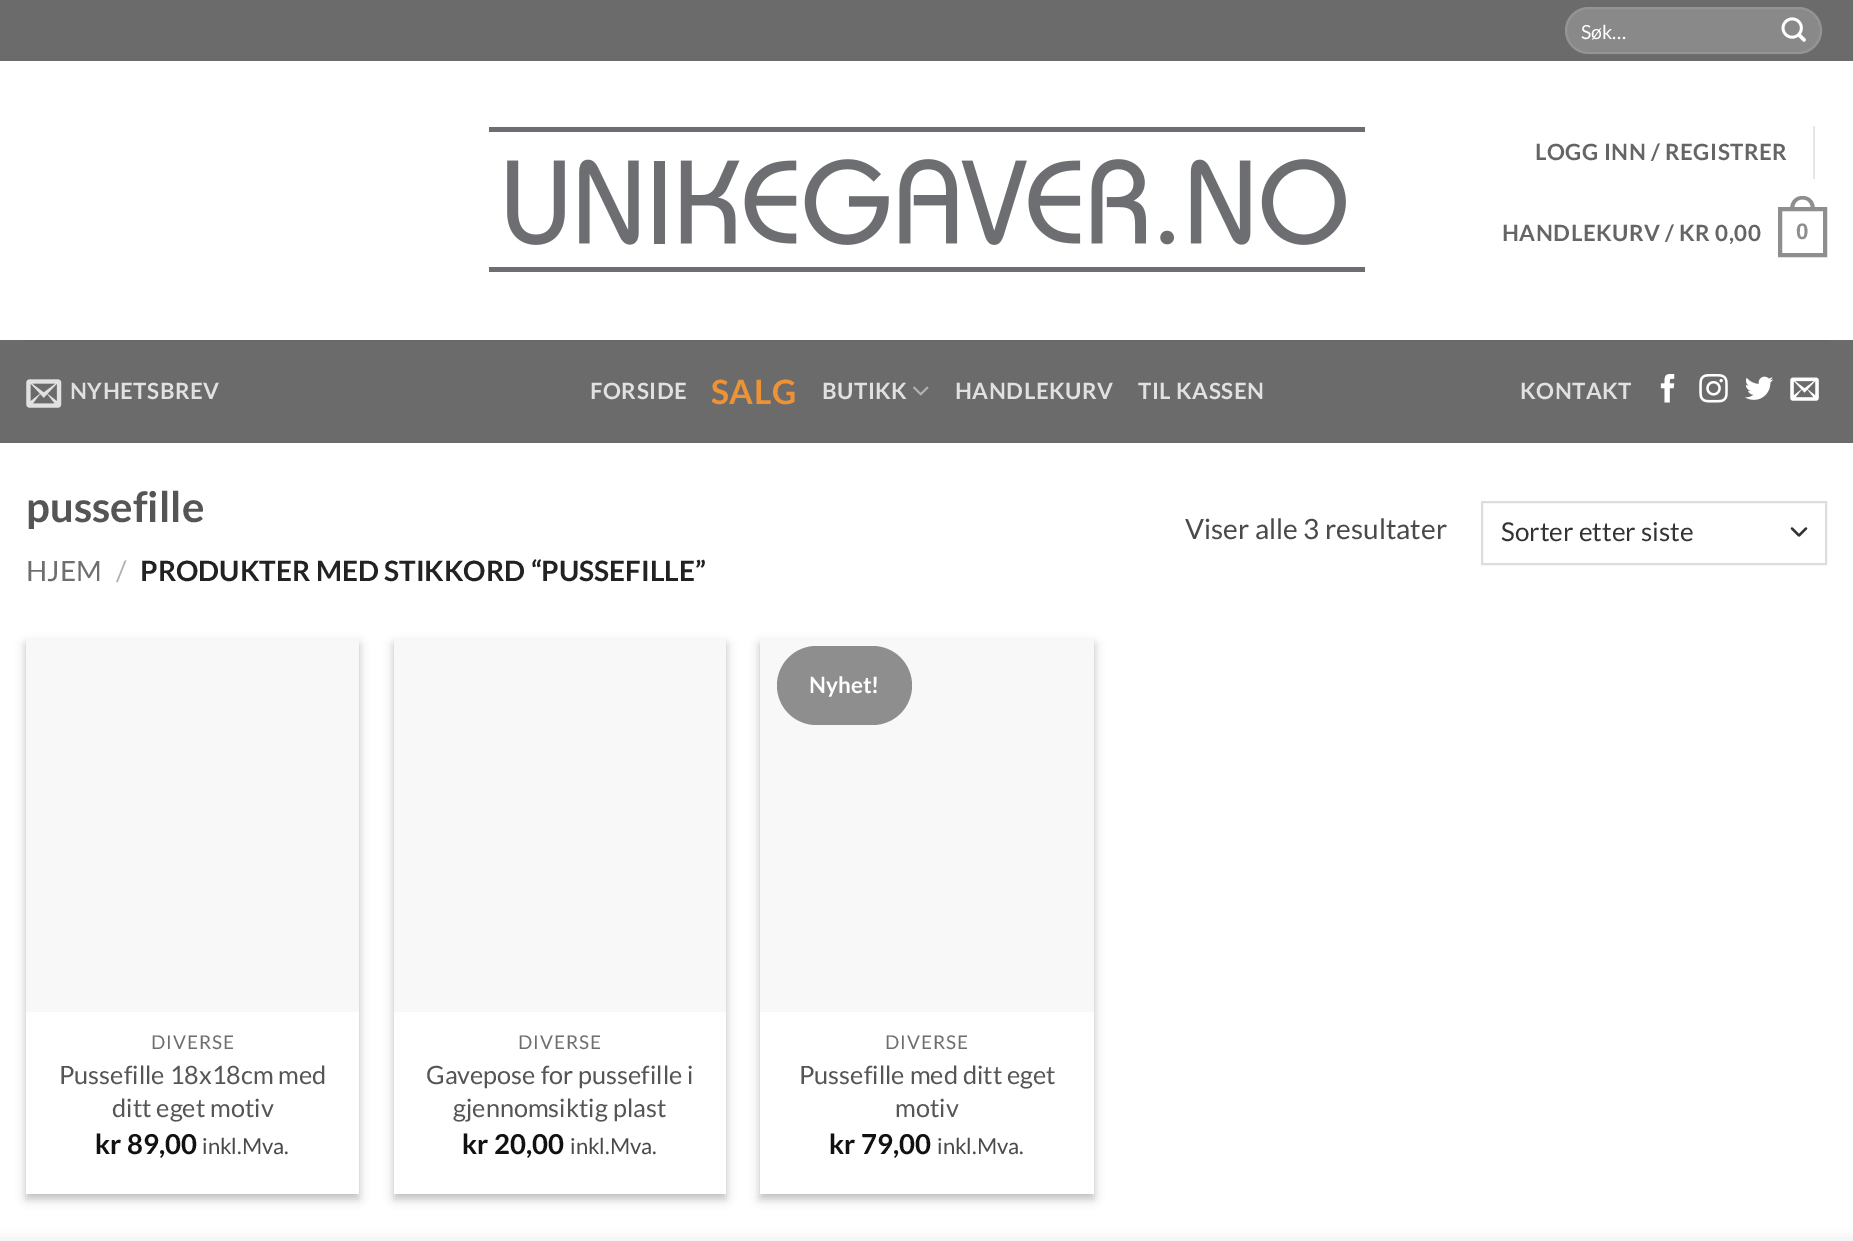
%!PS
<< /PageSize [1853 1241] /PageUsesTransparency true >> setpagedevice
/alpha { dup .setfillconstantalpha .setstrokeconstantalpha } def
/roundrect { 5 dict begin { /r /h /w /y /x } { exch def } forall
  x r add y moveto x w add y 2 copy h add r arct x w add y h add x 1 index r arct
  x y h add x y r arct x y 2 copy exch w add exch r arct closepath end } def
/shadow { 12 dict begin { /a /b /q /h /w /y /x } { exch def } forall gsave /was 0 def
  9 -2 -9 { dup b mul 4 div /e exch def 1 sub .425 mul 2.718 exch exp 1 add a .99 .min exch div /now exch def
    1 1 now sub 1 was sub div sub alpha /was now def
    w h .min e 2 mul add 0 gt { x e sub y e sub w e 2 mul add h e 2 mul add
      q e add b .6 mul add w h .min 2 div e add .min 0 .max roundrect fill } if } for grestore end } def
/picture { 5 dict begin { /h /w /y /x /name } { exch def } forall
  gsave x y translate w h scale
  w h 8 [w 0 0 h 0 0] name (r) file false 3 colorimage grestore end } def
0 .pushpdf14devicefilter
0 1241 translate 1 -1 scale
4 setmiterlimit
1 setgray
0 0 1853 1241 rectfill
0.42 setgray
0 0 1853 61 rectfill
0.537 setgray
1565 7 257 47 23.5 roundrect fill
0.09 alpha
1 setgray
2 setlinewidth
1566 8 255 45 22.5 roundrect stroke
/Lato-Regular [19.5 0 0 -19.5 0 0] selectfont
1 alpha
1581 39 moveto (Søk…) show
(img1.rgb) 1781 17 25 25 picture
(img2.rgb) 489 127 876 145 picture
/Lato-Bold [22.4 0 0 -22.4 0 0] selectfont
0.396 setgray
1535 160 moveto 0.5 0 (LOGG INN / REGISTRER) ashow
0.902 setgray
1813 126 2 53 rectfill
0.396 setgray
1502 241 moveto 0.5 0 (HANDLEKURV / KR 0,00) ashow
0.557 setgray
4 setlinewidth
1780 209 45 46 rectstroke
newpath 1802.5 196 moveto 1811 196 1815 202.5 1815 210 curveto 1790 210 lineto 1790 202.5 1794 196 1802.5 196 curveto closepath 1802.5 199.5 moveto 1809 199.5 1811 204.5 1811 210 curveto 1794 210 lineto 1794 204.5 1796 199.5 1802.5 199.5 curveto closepath eofill
/LiberationSans-Bold [22.4 0 0 -22.4 0 0] selectfont
1796 239 moveto 0.5 0 (0) ashow
0.42 setgray
0 340 1853 103 rectfill
0.408 setgray
26 340 1801 2 rectfill
(img3.rgb) 26 379 36 29 picture
/Lato-Bold [22.4 0 0 -22.4 0 0] selectfont
0.882 setgray
70 399 moveto 0.5 0 (NYHETSBREV) ashow
590 399 moveto 0.5 0 (FORSIDE) ashow
/Lato-Bold [33.5 0 0 -33.5 0 0] selectfont
0.929 0.576 0.212 setrgbcolor
711 404 moveto 0.5 0 (SALG) ashow
/Lato-Bold [22.4 0 0 -22.4 0 0] selectfont
0.882 setgray
822 399 moveto 0.5 0 (BUTIKK) ashow
(img4.rgb) 913 386 16 10 picture
955 399 moveto 0.5 0 (HANDLEKURV) ashow
1138 399 moveto 0.5 0 (TIL KASSEN) ashow
1520 399 moveto 0.5 0 (KONTAKT) ashow
(img5.rgb) 1660 374 15 29 picture
(img6.rgb) 1699 374 29 29 picture
(img7.rgb) 1745 376 29 24 picture
(img8.rgb) 1790 377 29 24 picture
/Lato-Bold [42 0 0 -42 0 0] selectfont
0.333 setgray
26 522 moveto (pussefille) show
/Lato-Regular [28 0 0 -28 0 0] selectfont
0.431 setgray
26 581 moveto (HJEM) show
0.698 setgray
116 581 moveto (/) show
/Lato-Bold [28 0 0 -28 0 0] selectfont
0.133 setgray
140 581 moveto (PRODUKTER MED STIKKORD “PUSSEFILLE”) show
/Lato-Regular [28 0 0 -28 0 0] selectfont
0.29 setgray
1185 539 moveto (Viser alle 3 resultater) show
0.2 setgray
2.3 setlinewidth
1 setlinecap
1 setlinejoin
newpath 1792 528.5 moveto 1799 535.5 lineto 1806 528.5 lineto stroke
0.867 setgray
2 setlinewidth
0 setlinecap
0 setlinejoin
1482 502 344 62 rectstroke
/Lato-Regular [26 0 0 -26 0 0] selectfont
0.2 setgray
1501 541 moveto (Sorter etter siste) show
0 setgray
26 644 333 555 0 5 0.23 shadow
33 651 319 541 0 5 0.16 shadow
1 setgray
26 1012 333 182 rectfill
0.973 setgray
26 639 333 373 rectfill
/Lato-Regular [19 0 0 -19 0 0] selectfont
0.431 setgray
151 1049 moveto 1 0 (DIVERSE) ashow
/Lato-Regular [25.25 0 0 -25.25 0 0] selectfont
0.333 setgray
59 1084 moveto (Pussefille 18x18cm med) show
112 1117 moveto (ditt eget motiv) show
/Lato-Bold [27.5 0 0 -27.5 0 0] selectfont
0.067 setgray
95 1154 moveto (kr 89,00) show
/Lato-Regular [22 0 0 -22 0 0] selectfont
0.29 setgray
202 1154 moveto (inkl.Mva.) show
0 setgray
394 644 332 555 0 5 0.23 shadow
401 651 318 541 0 5 0.16 shadow
1 setgray
394 1012 332 182 rectfill
0.973 setgray
394 639 332 373 rectfill
/Lato-Regular [19 0 0 -19 0 0] selectfont
0.431 setgray
518 1049 moveto 1 0 (DIVERSE) ashow
/Lato-Regular [25.25 0 0 -25.25 0 0] selectfont
0.333 setgray
426 1084 moveto (Gavepose for pussefille i) show
453 1117 moveto (gjennomsiktig plast) show
/Lato-Bold [27.5 0 0 -27.5 0 0] selectfont
0.067 setgray
462 1154 moveto (kr 20,00) show
/Lato-Regular [22 0 0 -22 0 0] selectfont
0.29 setgray
570 1154 moveto (inkl.Mva.) show
0 setgray
760 644 334 555 0 5 0.23 shadow
767 651 320 541 0 5 0.16 shadow
1 setgray
760 1012 334 182 rectfill
0.973 setgray
760 639 334 373 rectfill
0.557 setgray
777 646 135 79 39.5 roundrect fill
/Lato-Bold [22.4 0 0 -22.4 0 0] selectfont
1 setgray
809 693 moveto (Nyhet!) show
/Lato-Regular [19 0 0 -19 0 0] selectfont
0.431 setgray
885 1049 moveto 1 0 (DIVERSE) ashow
/Lato-Regular [25.25 0 0 -25.25 0 0] selectfont
0.333 setgray
799 1084 moveto (Pussefille med ditt eget) show
895 1117 moveto (motiv) show
/Lato-Bold [27.5 0 0 -27.5 0 0] selectfont
0.067 setgray
829 1154 moveto (kr 79,00) show
/Lato-Regular [22 0 0 -22 0 0] selectfont
0.29 setgray
937 1154 moveto (inkl.Mva.) show
0 setgray
0 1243 1853 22 0 8 0.14 shadow
.poppdf14devicefilter showpage
